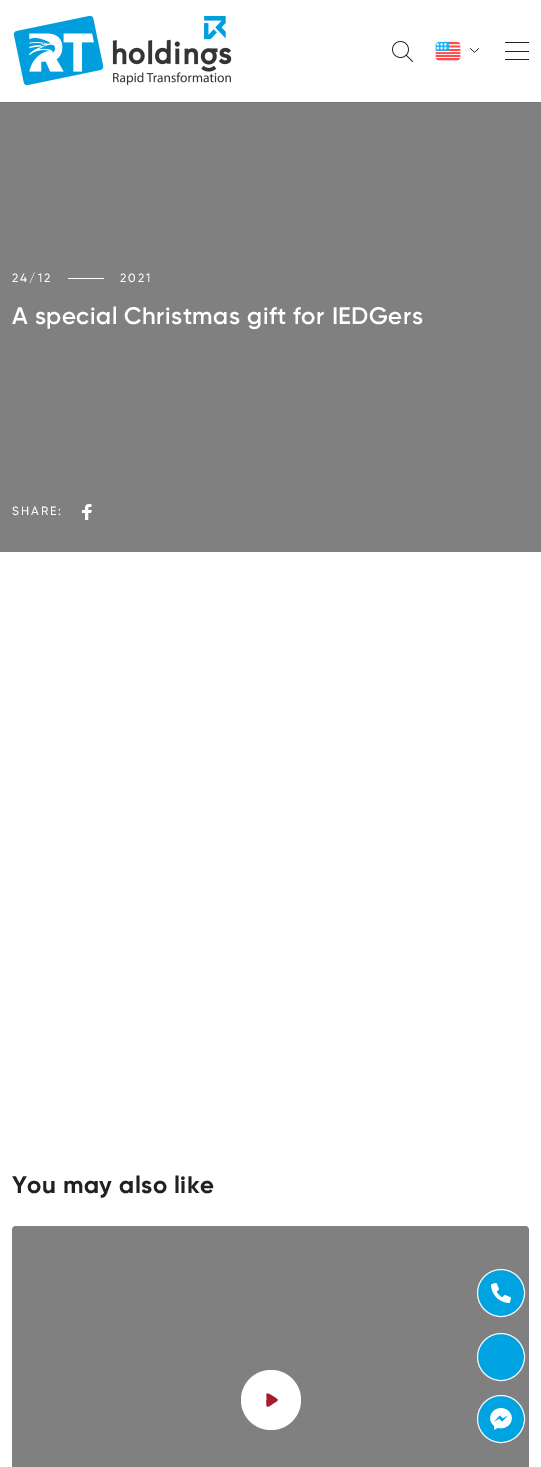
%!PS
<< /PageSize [541 1467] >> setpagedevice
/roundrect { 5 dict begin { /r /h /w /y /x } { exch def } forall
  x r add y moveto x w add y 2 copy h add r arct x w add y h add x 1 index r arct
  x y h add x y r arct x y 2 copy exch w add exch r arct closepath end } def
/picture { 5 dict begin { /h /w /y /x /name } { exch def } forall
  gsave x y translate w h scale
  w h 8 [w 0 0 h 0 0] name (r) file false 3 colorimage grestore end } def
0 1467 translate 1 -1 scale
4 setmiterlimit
1 setgray
0 0 541 1467 rectfill
0.463 0.467 0.467 setrgbcolor
0 102 541 1 rectfill
(img1.rgb) 13 16 219 70 picture
(img2.rgb) 392 41 22 22 picture
(img3.rgb) 435 41 26 20 picture
(img4.rgb) 470 48 9 5 picture
0.125 0.129 0.129 setrgbcolor
505 42 24 1 rectfill
505 51 24 1 rectfill
505 59 24 1 rectfill
0.502 setgray
0 103 541 449 rectfill
/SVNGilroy-Medium [12 0 0 -12 0 0] selectfont
1 setgray
12 282 moveto 2 0 (24/12) ashow
68 278 36 1 rectfill
120 282 moveto 2 0 (2021) ashow
/SVNGilroy-SemiBold [24 0 0 -24 0 0] selectfont
12 324 moveto 0.5 0 (A special Christmas gift for IEDGers) ashow
/SVNGilroy-Medium [12 0 0 -12 0 0] selectfont
12 515 moveto 2 0 (SHARE:) ashow
(img5.rgb) 82 504 10 16 picture
/SVNGilroy-Bold [24 0 0 -24 0 0] selectfont
0.125 0.129 0.129 setrgbcolor
12 1193 moveto 0.5 0 (You may also like) ashow
0.502 setgray
12 1226 517 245 4 roundrect fill
1 setgray
newpath 271 1400 30 0 360 arc closepath fill
0.647 0.11 0.188 setrgbcolor
newpath 277 1399 moveto 276 1398 268.5 1393 267.5 1393.5 curveto 266 1393.5 266.5 1395.5 266.5 1396.5 curveto 266.5 1400 lineto 266.5 1401 266 1406 267 1406.5 curveto 268.5 1407.5 273 1403.5 274 1403 curveto 274.5 1402.5 279.5 1400.5 277 1399 curveto closepath fill
0 0.639 0.882 setrgbcolor
newpath 501 1293 23.5 0 360 arc closepath gsave fill grestore
0.961 setgray
stroke
(img6.rgb) 490 1283 21 21 picture
0 0.639 0.882 setrgbcolor
newpath 501 1357 23.5 0 360 arc closepath gsave fill grestore
0.961 setgray
stroke
0 0.639 0.882 setrgbcolor
newpath 501 1419 23.5 0 360 arc closepath gsave fill grestore
0.961 setgray
stroke
(img7.rgb) 490 1408 22 22 picture
showpage
